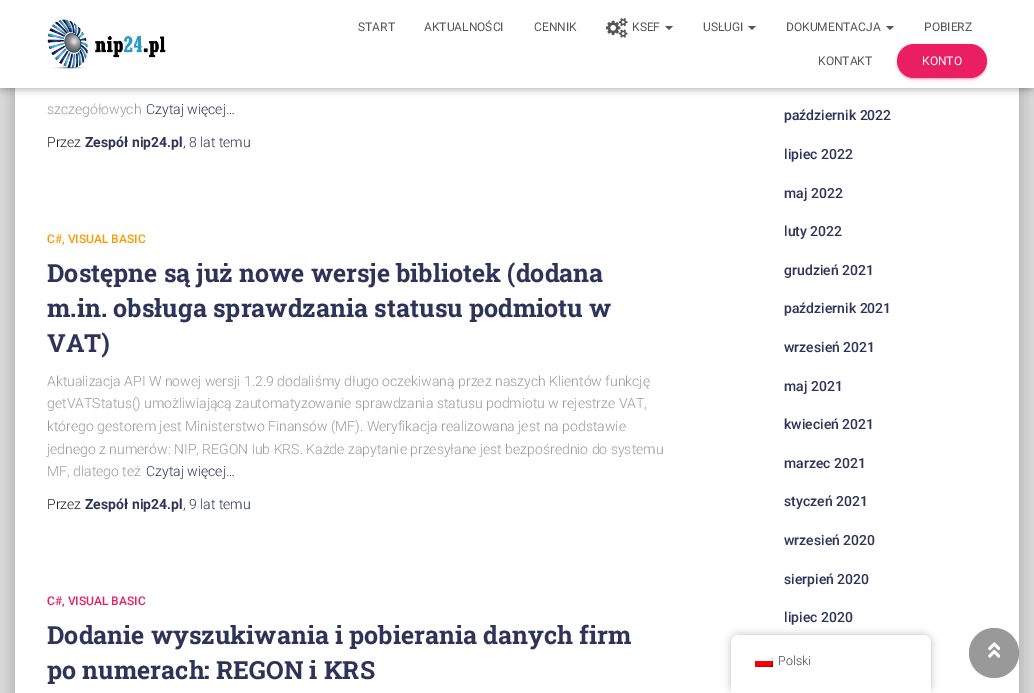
%!PS
<< /PageSize [1034 693] /PageUsesTransparency true >> setpagedevice
/alpha { dup .setfillconstantalpha .setstrokeconstantalpha } def
/roundrect { 5 dict begin { /r /h /w /y /x } { exch def } forall
  x r add y moveto x w add y 2 copy h add r arct x w add y h add x 1 index r arct
  x y h add x y r arct x y 2 copy exch w add exch r arct closepath end } def
/shadow { 12 dict begin { /a /b /q /h /w /y /x } { exch def } forall gsave /was 0 def
  9 -2 -9 { dup b mul 4 div /e exch def 1 sub .425 mul 2.718 exch exp 1 add a .99 .min exch div /now exch def
    1 1 now sub 1 was sub div sub alpha /was now def
    w h .min e 2 mul add 0 gt { x e sub y e sub w e 2 mul add h e 2 mul add
      q e add b .6 mul add w h .min 2 div e add .min 0 .max roundrect fill } if } for grestore end } def
/picture { 5 dict begin { /h /w /y /x /name } { exch def } forall
  gsave x y translate w h scale
  w h 8 [w 0 0 h 0 0] name (r) file false 3 colorimage grestore end } def
0 .pushpdf14devicefilter
0 693 translate 1 -1 scale
4 setmiterlimit
0.898 setgray
0 0 1034 693 rectfill
0 setgray
20 -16 994 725 1 5 0.2 shadow
10 -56 1014 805 11 15 0.12 shadow
13 -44 1008 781 8 12 0.14 shadow
1 setgray
15 88 1004 605 rectfill
0 setgray
2 6 1030 84 0 2.5 0.1 shadow
0 1 1034 88 0 5 0.12 shadow
6 7 1022 76 0 5 0.42 shadow
1 setgray
0 0 1034 88 rectfill
(img1.rgb) 47 19 119 50 picture
/Roboto-Regular [12 0 0 -12 0 0] selectfont
0.333 setgray
358 31 moveto (START) show
424 31 moveto (AKTUALNOŚCI) show
534 31 moveto (CENNIK) show
(img2.rgb) 606 18 22 20 picture
632 31 moveto (KSEF) show
newpath 665 26 moveto 673 26 lineto 669 30 lineto closepath fill
703 31 moveto (USŁUGI) show
newpath 748 26 moveto 756 26 lineto 752 30 lineto closepath fill
786 31 moveto (DOKUMENTACJA) show
newpath 886 26 moveto 894 26 lineto 890 30 lineto closepath fill
924 31 moveto (POBIERZ) show
818 65 moveto (KONTAKT) show
0.914 0.118 0.388 setrgbcolor
897 45 90 34 17 2.5 0.12 shadow
899 49 86 30 15 0.5 0.2 shadow
897 46 90 34 17 1 0.14 shadow
897 44 90 34 17 roundrect fill
1 setgray
922 65 moveto (KONTO) show
/Roboto-Light [14 0 0 -14 0 0] selectfont
0.6 setgray
47 114 moveto (szczegółowych) show
0.176 0.2 0.349 setrgbcolor
146 114 moveto (Czytaj więcej…) show
0.129 setgray
47 147 moveto (Przez) show
/Roboto-Bold [14 0 0 -14 0 0] selectfont
0.176 0.2 0.349 setrgbcolor
85 147 moveto (Zespół nip24.pl) show
/Roboto-Light [14 0 0 -14 0 0] selectfont
0.129 setgray
183 147 moveto (,) show
0.176 0.2 0.349 setrgbcolor
189 147 moveto (8 lat temu) show
/Roboto-Medium [12 0 0 -12 0 0] selectfont
1 0.596 0 setrgbcolor
47 243 moveto (C#, VISUAL BASIC) show
/RobotoSlab-Bold [25 0 0 -25 0 0] selectfont
0.176 0.2 0.349 setrgbcolor
47 282 moveto (Dostępne są już nowe wersje bibliotek \(dodana) show
47 317 moveto (m.in. obsługa sprawdzania statusu podmiotu w) show
47 352 moveto (VAT\)) show
/Roboto-Light [14 0 0 -14 0 0] selectfont
0.6 setgray
47 386 moveto (Aktualizacja API W nowej wersji 1.2.9 dodaliśmy długo oczekiwaną przez naszych Klientów funkcję) show
47 408 moveto (getVATStatus\(\) umożliwiającą zautomatyzowanie sprawdzania statusu podmiotu w rejestrze VAT,) show
47 431 moveto (którego gestorem jest Ministerstwo Finansów \(MF\). Weryfikacja realizowana jest na podstawie) show
47 454 moveto (jednego z numerów: NIP, REGON lub KRS. Każde zapytanie przesyłane jest bezpośrednio do systemu) show
47 476 moveto (MF, dlatego też) show
0.176 0.2 0.349 setrgbcolor
146 476 moveto (Czytaj więcej…) show
0.129 setgray
47 509 moveto (Przez) show
/Roboto-Bold [14 0 0 -14 0 0] selectfont
0.176 0.2 0.349 setrgbcolor
85 509 moveto (Zespół nip24.pl) show
/Roboto-Light [14 0 0 -14 0 0] selectfont
0.129 setgray
183 509 moveto (,) show
0.176 0.2 0.349 setrgbcolor
189 509 moveto (9 lat temu) show
/Roboto-Medium [12 0 0 -12 0 0] selectfont
0.914 0.118 0.388 setrgbcolor
47 605 moveto (C#, VISUAL BASIC) show
/RobotoSlab-Bold [25 0 0 -25 0 0] selectfont
0.176 0.2 0.349 setrgbcolor
47 644 moveto (Dodanie wyszukiwania i pobierania danych firm) show
47 679 moveto (po numerach: REGON i KRS) show
/Roboto-Medium [14 0 0 -14 0 0] selectfont
784 120 moveto (październik 2022) show
784 159 moveto (lipiec 2022) show
784 198 moveto (maj 2022) show
784 236 moveto (luty 2022) show
784 275 moveto (grudzień 2021) show
784 313 moveto (październik 2021) show
784 352 moveto (wrzesień 2021) show
784 391 moveto (maj 2021) show
784 429 moveto (kwiecień 2021) show
784 468 moveto (marzec 2021) show
784 506 moveto (styczeń 2021) show
784 545 moveto (wrzesień 2020) show
784 584 moveto (sierpień 2020) show
784 622 moveto (lipiec 2020) show
0.6 setgray
newpath 994 653 25 0 360 arc closepath fill
(img3.rgb) 988 642 12 16 picture
0 setgray
731 635 200 58 8 4 0.25 shadow
1 setgray
newpath 739 635 moveto 923 635 lineto 927.5 635 931 638.5 931 643 curveto 931 693 lineto 731 693 lineto 731 643 lineto 731 638.5 734.5 635 739 635 curveto closepath fill
(img4.rgb) 755 657 18 10 picture
/Roboto-Light [12.5 0 0 -12.5 0 0] selectfont
0.251 setgray
778 665 moveto (Polski) show
.poppdf14devicefilter showpage
